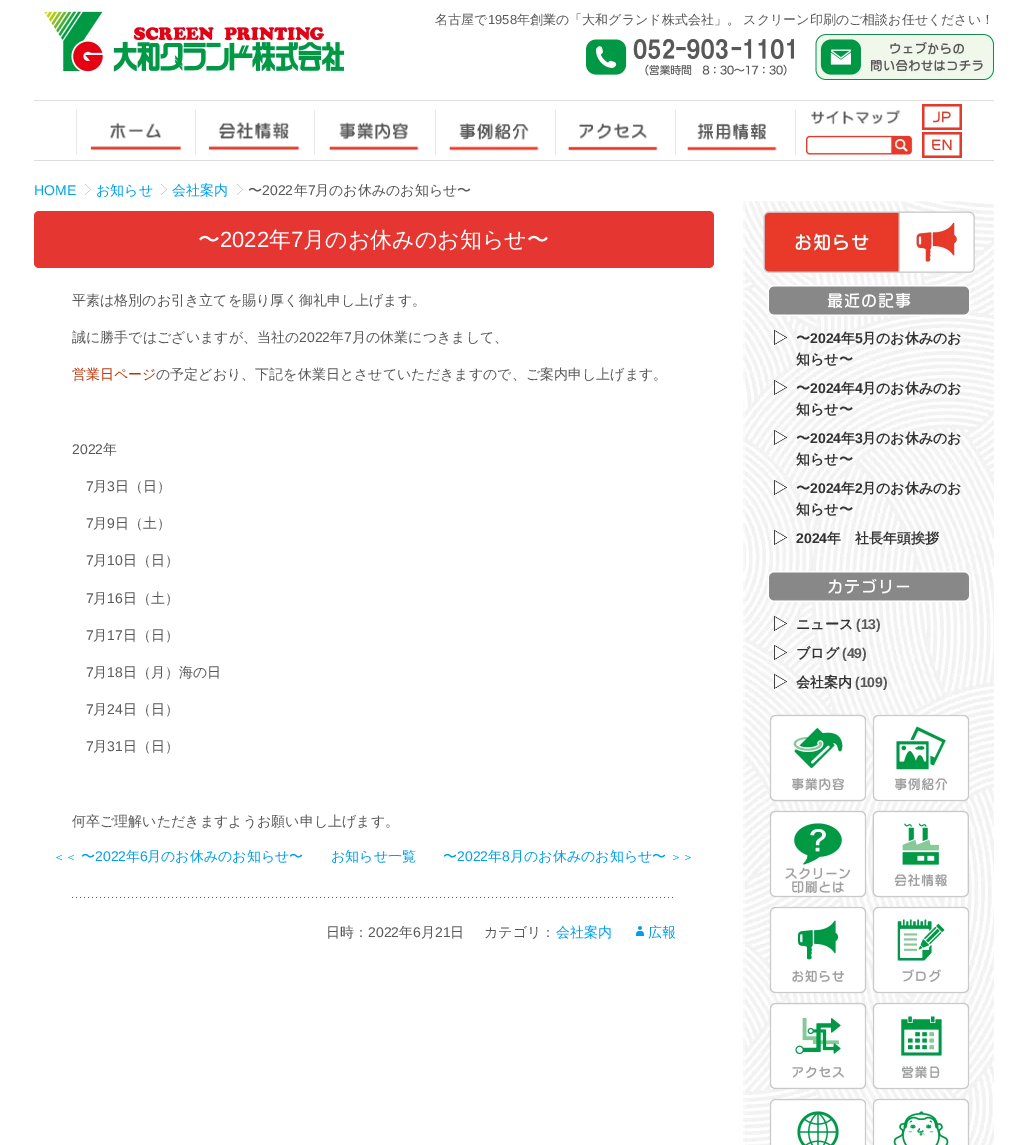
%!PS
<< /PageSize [1027 1145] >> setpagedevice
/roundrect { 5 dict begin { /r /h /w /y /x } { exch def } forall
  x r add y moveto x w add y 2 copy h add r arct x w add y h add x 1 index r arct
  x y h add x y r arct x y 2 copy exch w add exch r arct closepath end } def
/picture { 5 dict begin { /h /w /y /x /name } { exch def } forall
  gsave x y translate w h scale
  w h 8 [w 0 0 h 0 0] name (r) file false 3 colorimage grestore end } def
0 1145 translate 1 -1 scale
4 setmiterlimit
1 setgray
0 0 1027 1145 rectfill
(img1.rgb) 44 10 301 64 picture
/WenQuanYiZenHei-Medium [13 0 0 -13 0 0] selectfont
0.349 0.341 0.341 setrgbcolor
435 24 moveto (名古屋で) show
/LiberationSans-Regular [13 0 0 -13 0 0] selectfont
488 24 moveto (1958) show
/WenQuanYiZenHei-Medium [13 0 0 -13 0 0] selectfont
517 24 moveto (年創業の「大和グランド株式会社」。 スクリーン印刷のご相談お任せください！) show
(img2.rgb) 586 39 208 37 picture
(img3.rgb) 815 34 179 46 picture
(img4.rgb) 34 100 960 61 picture
(img5.rgb) 811 110 90 15 picture
(img6.rgb) 922 104 40 26 picture
(img7.rgb) 90 122 92 29 picture
(img8.rgb) 208 122 92 29 picture
(img9.rgb) 329 122 90 29 picture
(img10.rgb) 449 123 90 28 picture
(img11.rgb) 568 123 90 28 picture
(img12.rgb) 687 123 90 28 picture
(img13.rgb) 806 135 107 20 picture
(img14.rgb) 922 132 40 26 picture
/LiberationSans-Regular [14 0 0 -14 0 0] selectfont
0 0.627 0.914 setrgbcolor
34 195 moveto (HOME) show
(img15.rgb) 85 184 6 11 picture
/WenQuanYiZenHei-Medium [14 0 0 -14 0 0] selectfont
96 195 moveto (お知らせ) show
(img15.rgb) 161 184 6 11 picture
172 195 moveto (会社案内) show
(img15.rgb) 237 184 6 11 picture
0.349 0.341 0.341 setrgbcolor
248 195 moveto (〜) show
/LiberationSans-Regular [14 0 0 -14 0 0] selectfont
262 195 moveto (2022) show
/WenQuanYiZenHei-Medium [14 0 0 -14 0 0] selectfont
294 195 moveto (年) show
/LiberationSans-Regular [14 0 0 -14 0 0] selectfont
308 195 moveto (7) show
/WenQuanYiZenHei-Medium [14 0 0 -14 0 0] selectfont
315 195 moveto (月のお休みのお知らせ〜) show
(img16.rgb) 743 201 1 944 picture
0.898 0.212 0.192 setrgbcolor
34 211 680 57 5 roundrect fill
/WenQuanYiZenHei-Medium [22 0 0 -22 0 0] selectfont
1 setgray
198 247 moveto (〜) show
/LiberationSans-Regular [22 0 0 -22 0 0] selectfont
220 247 moveto (2022) show
/WenQuanYiZenHei-Medium [22 0 0 -22 0 0] selectfont
269 247 moveto (年) show
/LiberationSans-Regular [22 0 0 -22 0 0] selectfont
291 247 moveto (7) show
/WenQuanYiZenHei-Medium [22 0 0 -22 0 0] selectfont
303 247 moveto (月のお休みのお知らせ〜) show
/WenQuanYiZenHei-Medium [14 0 0 -14 0 0] selectfont
0.349 0.341 0.341 setrgbcolor
72 305 moveto (平素は格別のお引き立てを賜り厚く御礼申し上げます。) show
72 342 moveto (誠に勝手ではございますが、当社の) show
/LiberationSans-Regular [14 0 0 -14 0 0] selectfont
299 342 moveto (2022) show
/WenQuanYiZenHei-Medium [14 0 0 -14 0 0] selectfont
330 342 moveto (年) show
/LiberationSans-Regular [14 0 0 -14 0 0] selectfont
344 342 moveto (7) show
/WenQuanYiZenHei-Medium [14 0 0 -14 0 0] selectfont
352 342 moveto (月の休業につきまして、) show
0.737 0.212 0.039 setrgbcolor
72 379 moveto (営業日ページ) show
0.349 0.341 0.341 setrgbcolor
156 379 moveto (の予定どおり、下記を休業日とさせていただきますので、ご案内申し上げます。) show
/LiberationSans-Regular [14 0 0 -14 0 0] selectfont
72 454 moveto (2022) show
/WenQuanYiZenHei-Medium [14 0 0 -14 0 0] selectfont
103 454 moveto (年) show
/LiberationSans-Regular [14 0 0 -14 0 0] selectfont
86 491 moveto (7) show
/WenQuanYiZenHei-Medium [14 0 0 -14 0 0] selectfont
93 491 moveto (月) show
/LiberationSans-Regular [14 0 0 -14 0 0] selectfont
107 491 moveto (3) show
/WenQuanYiZenHei-Medium [14 0 0 -14 0 0] selectfont
115 491 moveto (日（日）) show
/LiberationSans-Regular [14 0 0 -14 0 0] selectfont
86 528 moveto (7) show
/WenQuanYiZenHei-Medium [14 0 0 -14 0 0] selectfont
93 528 moveto (月) show
/LiberationSans-Regular [14 0 0 -14 0 0] selectfont
107 528 moveto (9) show
/WenQuanYiZenHei-Medium [14 0 0 -14 0 0] selectfont
115 528 moveto (日（土）) show
/LiberationSans-Regular [14 0 0 -14 0 0] selectfont
86 565 moveto (7) show
/WenQuanYiZenHei-Medium [14 0 0 -14 0 0] selectfont
93 565 moveto (月) show
/LiberationSans-Regular [14 0 0 -14 0 0] selectfont
107 565 moveto (10) show
/WenQuanYiZenHei-Medium [14 0 0 -14 0 0] selectfont
123 565 moveto (日（日）) show
/LiberationSans-Regular [14 0 0 -14 0 0] selectfont
86 603 moveto (7) show
/WenQuanYiZenHei-Medium [14 0 0 -14 0 0] selectfont
93 603 moveto (月) show
/LiberationSans-Regular [14 0 0 -14 0 0] selectfont
107 603 moveto (16) show
/WenQuanYiZenHei-Medium [14 0 0 -14 0 0] selectfont
123 603 moveto (日（土）) show
/LiberationSans-Regular [14 0 0 -14 0 0] selectfont
86 640 moveto (7) show
/WenQuanYiZenHei-Medium [14 0 0 -14 0 0] selectfont
93 640 moveto (月) show
/LiberationSans-Regular [14 0 0 -14 0 0] selectfont
107 640 moveto (17) show
/WenQuanYiZenHei-Medium [14 0 0 -14 0 0] selectfont
123 640 moveto (日（日）) show
/LiberationSans-Regular [14 0 0 -14 0 0] selectfont
86 677 moveto (7) show
/WenQuanYiZenHei-Medium [14 0 0 -14 0 0] selectfont
93 677 moveto (月) show
/LiberationSans-Regular [14 0 0 -14 0 0] selectfont
107 677 moveto (18) show
/WenQuanYiZenHei-Medium [14 0 0 -14 0 0] selectfont
123 677 moveto (日（月）海の日) show
/LiberationSans-Regular [14 0 0 -14 0 0] selectfont
86 714 moveto (7) show
/WenQuanYiZenHei-Medium [14 0 0 -14 0 0] selectfont
93 714 moveto (月) show
/LiberationSans-Regular [14 0 0 -14 0 0] selectfont
107 714 moveto (24) show
/WenQuanYiZenHei-Medium [14 0 0 -14 0 0] selectfont
123 714 moveto (日（日）) show
/LiberationSans-Regular [14 0 0 -14 0 0] selectfont
86 751 moveto (7) show
/WenQuanYiZenHei-Medium [14 0 0 -14 0 0] selectfont
93 751 moveto (月) show
/LiberationSans-Regular [14 0 0 -14 0 0] selectfont
107 751 moveto (31) show
/WenQuanYiZenHei-Medium [14 0 0 -14 0 0] selectfont
123 751 moveto (日（日）) show
72 826 moveto (何卒ご理解いただきますようお願い申し上げます。) show
/WenQuanYiZenHei-Medium [12 0 0 -12 0 0] selectfont
0 0.627 0.914 setrgbcolor
53 861 moveto (＜＜) show
/WenQuanYiZenHei-Medium [14 0 0 -14 0 0] selectfont
81 861 moveto (〜) show
/LiberationSans-Regular [14 0 0 -14 0 0] selectfont
95 861 moveto (2022) show
/WenQuanYiZenHei-Medium [14 0 0 -14 0 0] selectfont
126 861 moveto (年) show
/LiberationSans-Regular [14 0 0 -14 0 0] selectfont
140 861 moveto (6) show
/WenQuanYiZenHei-Medium [14 0 0 -14 0 0] selectfont
147 861 moveto (月のお休みのお知らせ〜) show
331 861 moveto (お知らせ一覧) show
443 861 moveto (〜) show
/LiberationSans-Regular [14 0 0 -14 0 0] selectfont
457 861 moveto (2022) show
/WenQuanYiZenHei-Medium [14 0 0 -14 0 0] selectfont
488 861 moveto (年) show
/LiberationSans-Regular [14 0 0 -14 0 0] selectfont
502 861 moveto (8) show
/WenQuanYiZenHei-Medium [14 0 0 -14 0 0] selectfont
510 861 moveto (月のお休みのお知らせ〜) show
/WenQuanYiZenHei-Medium [12 0 0 -12 0 0] selectfont
670 861 moveto (＞＞) show
(img17.rgb) 72 897 601 1 picture
/WenQuanYiZenHei-Medium [14 0 0 -14 0 0] selectfont
0.349 0.341 0.341 setrgbcolor
326 937 moveto (日時：) show
/LiberationSans-Regular [14 0 0 -14 0 0] selectfont
368 937 moveto (2022) show
/WenQuanYiZenHei-Medium [14 0 0 -14 0 0] selectfont
399 937 moveto (年) show
/LiberationSans-Regular [14 0 0 -14 0 0] selectfont
413 937 moveto (6) show
/WenQuanYiZenHei-Medium [14 0 0 -14 0 0] selectfont
421 937 moveto (月) show
/LiberationSans-Regular [14 0 0 -14 0 0] selectfont
435 937 moveto (21) show
/WenQuanYiZenHei-Medium [14 0 0 -14 0 0] selectfont
450 937 moveto (日) show
484 937 moveto (カテゴリ：) show
0 0.627 0.914 setrgbcolor
556 937 moveto (会社案内) show
(img18.rgb) 636 926 8 10 picture
648 937 moveto (広報) show
(img19.rgb) 744 201 250 944 picture
(img20.rgb) 763 211 212 62 picture
(img21.rgb) 767 285 204 31 picture
(img22.rgb) 774 330 13 15 picture
/WenQuanYiZenHei-Bold [14 0 0 -14 0 0] selectfont
0.2 setgray
796 343 moveto (〜) show
/LiberationSans-Bold [14 0 0 -14 0 0] selectfont
810 343 moveto (2024) show
/WenQuanYiZenHei-Bold [14 0 0 -14 0 0] selectfont
841 343 moveto (年) show
/LiberationSans-Bold [14 0 0 -14 0 0] selectfont
855 343 moveto (5) show
/WenQuanYiZenHei-Bold [14 0 0 -14 0 0] selectfont
862 343 moveto (月のお休みのお) show
796 364 moveto (知らせ〜) show
(img23.rgb) 774 380 13 15 picture
796 393 moveto (〜) show
/LiberationSans-Bold [14 0 0 -14 0 0] selectfont
810 393 moveto (2024) show
/WenQuanYiZenHei-Bold [14 0 0 -14 0 0] selectfont
841 393 moveto (年) show
/LiberationSans-Bold [14 0 0 -14 0 0] selectfont
855 393 moveto (4) show
/WenQuanYiZenHei-Bold [14 0 0 -14 0 0] selectfont
862 393 moveto (月のお休みのお) show
796 414 moveto (知らせ〜) show
(img24.rgb) 774 430 13 15 picture
796 443 moveto (〜) show
/LiberationSans-Bold [14 0 0 -14 0 0] selectfont
810 443 moveto (2024) show
/WenQuanYiZenHei-Bold [14 0 0 -14 0 0] selectfont
841 443 moveto (年) show
/LiberationSans-Bold [14 0 0 -14 0 0] selectfont
855 443 moveto (3) show
/WenQuanYiZenHei-Bold [14 0 0 -14 0 0] selectfont
862 443 moveto (月のお休みのお) show
796 464 moveto (知らせ〜) show
(img25.rgb) 774 480 13 15 picture
796 493 moveto (〜) show
/LiberationSans-Bold [14 0 0 -14 0 0] selectfont
810 493 moveto (2024) show
/WenQuanYiZenHei-Bold [14 0 0 -14 0 0] selectfont
841 493 moveto (年) show
/LiberationSans-Bold [14 0 0 -14 0 0] selectfont
855 493 moveto (2) show
/WenQuanYiZenHei-Bold [14 0 0 -14 0 0] selectfont
862 493 moveto (月のお休みのお) show
796 514 moveto (知らせ〜) show
(img26.rgb) 774 530 13 15 picture
/LiberationSans-Bold [14 0 0 -14 0 0] selectfont
796 543 moveto (2024) show
/WenQuanYiZenHei-Bold [14 0 0 -14 0 0] selectfont
827 543 moveto (年　社長年頭挨拶) show
(img27.rgb) 767 571 204 31 picture
(img28.rgb) 774 616 13 15 picture
796 629 moveto (ニュース) show
/LiberationSans-Bold [14 0 0 -14 0 0] selectfont
0.349 0.341 0.341 setrgbcolor
856 629 moveto (\(13\)) show
(img29.rgb) 774 645 13 15 picture
/WenQuanYiZenHei-Bold [14 0 0 -14 0 0] selectfont
0.2 setgray
796 658 moveto (ブログ) show
/LiberationSans-Bold [14 0 0 -14 0 0] selectfont
0.349 0.341 0.341 setrgbcolor
842 658 moveto (\(49\)) show
(img30.rgb) 774 674 13 15 picture
/WenQuanYiZenHei-Bold [14 0 0 -14 0 0] selectfont
0.2 setgray
796 687 moveto (会社案内) show
/LiberationSans-Bold [14 0 0 -14 0 0] selectfont
0.349 0.341 0.341 setrgbcolor
855 687 moveto (\(109\)) show
(img31.rgb) 769 714 98 88 picture
(img32.rgb) 872 714 98 88 picture
(img33.rgb) 769 810 98 88 picture
(img34.rgb) 872 810 97 88 picture
(img35.rgb) 769 906 98 88 picture
(img36.rgb) 872 906 98 88 picture
(img37.rgb) 769 1002 98 88 picture
(img38.rgb) 872 1002 98 88 picture
(img39.rgb) 769 1098 98 47 picture
(img40.rgb) 872 1098 98 47 picture
showpage
